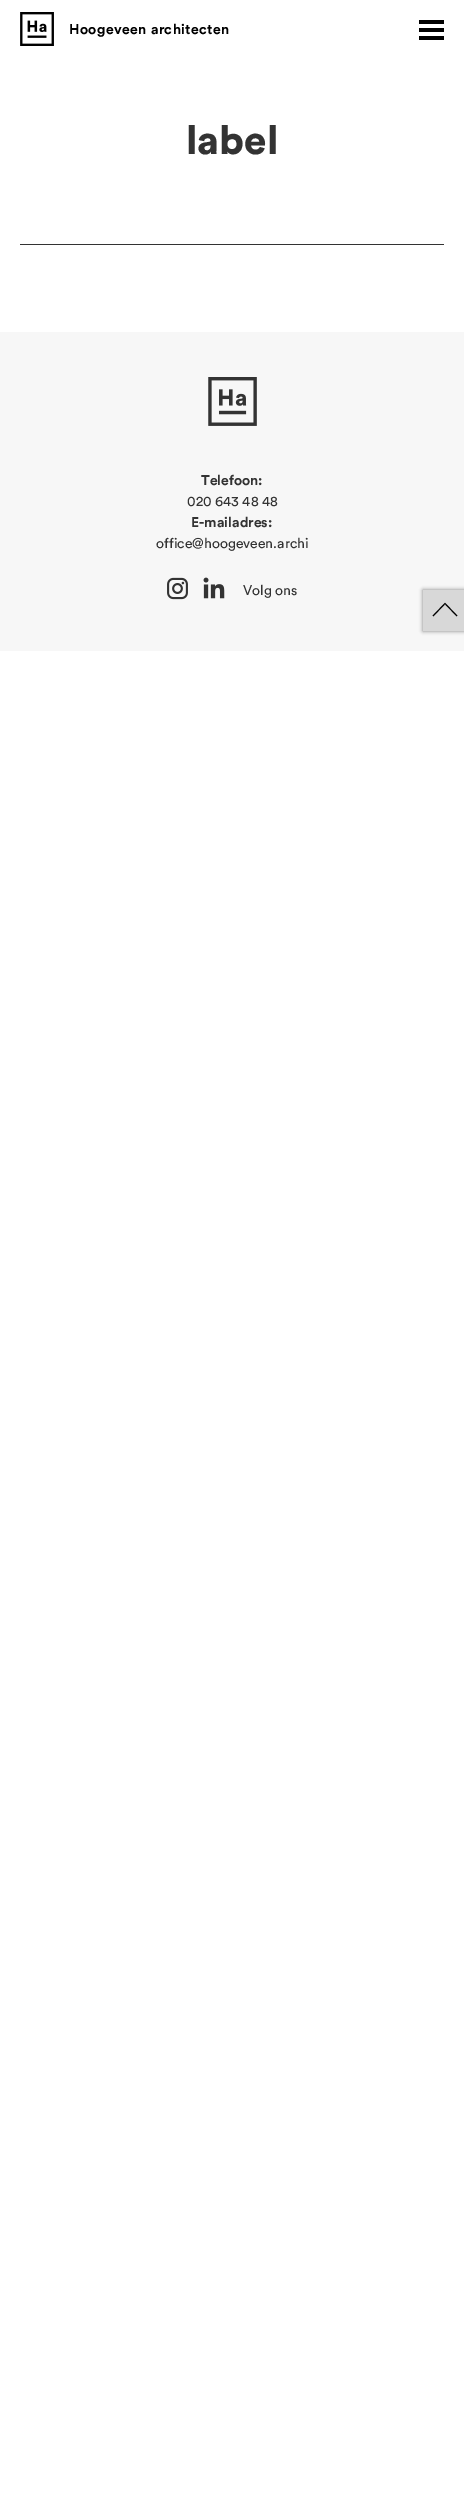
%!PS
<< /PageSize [464 2495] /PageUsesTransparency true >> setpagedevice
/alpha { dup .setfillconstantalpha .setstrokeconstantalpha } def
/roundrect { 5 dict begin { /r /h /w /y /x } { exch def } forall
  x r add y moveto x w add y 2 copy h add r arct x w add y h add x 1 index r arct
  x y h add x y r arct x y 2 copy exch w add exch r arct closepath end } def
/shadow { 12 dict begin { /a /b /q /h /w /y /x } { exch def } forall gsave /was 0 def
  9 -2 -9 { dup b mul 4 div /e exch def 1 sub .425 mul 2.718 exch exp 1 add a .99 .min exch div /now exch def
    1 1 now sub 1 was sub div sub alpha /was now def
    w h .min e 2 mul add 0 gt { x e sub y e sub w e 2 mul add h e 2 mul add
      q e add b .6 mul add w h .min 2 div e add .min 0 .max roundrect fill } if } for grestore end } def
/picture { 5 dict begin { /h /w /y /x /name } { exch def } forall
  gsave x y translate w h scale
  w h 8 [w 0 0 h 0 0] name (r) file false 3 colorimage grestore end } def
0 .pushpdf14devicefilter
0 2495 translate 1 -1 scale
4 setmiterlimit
1 setgray
0 0 464 2495 rectfill
(img1.rgb) 20 12 34 34 picture
/Circular-Bold [14 0 0 -14 0 0] selectfont
0 setgray
69 34 moveto 0.4 0 (Hoogeveen architecten) ashow
419 28 25 4 rectfill
419 20 25 4 rectfill
419 36 25 4 rectfill
/Circular-Black [40 0 0 -40 0 0] selectfont
0.2 setgray
186 154 moveto (label) show
20 244 424 1 rectfill
0.969 setgray
0 332 464 319 rectfill
(img2.rgb) 208 377 49 49 picture
/Circular-Bold [14 0 0 -14 0 0] selectfont
0.2 setgray
201 485 moveto (Telefoon:) show
/Circular-Regular [14 0 0 -14 0 0] selectfont
187 506 moveto (020 643 48 48) show
/Circular-Bold [14 0 0 -14 0 0] selectfont
191 527 moveto (E-mailadres:) show
/Circular-Regular [14 0 0 -14 0 0] selectfont
156 548 moveto (office@hoogeveen.archi) show
(img3.rgb) 167 577 21 23 picture
(img4.rgb) 203 577 22 22 picture
243 595 moveto (Volg ons) show
0 setgray
423 590 41 41 0 2 0.5 shadow
0.847 setgray
423 590 41 41 rectfill
0 setgray
newpath 433 616 moveto 445 603.5 lineto 457 616 lineto stroke
.poppdf14devicefilter showpage
